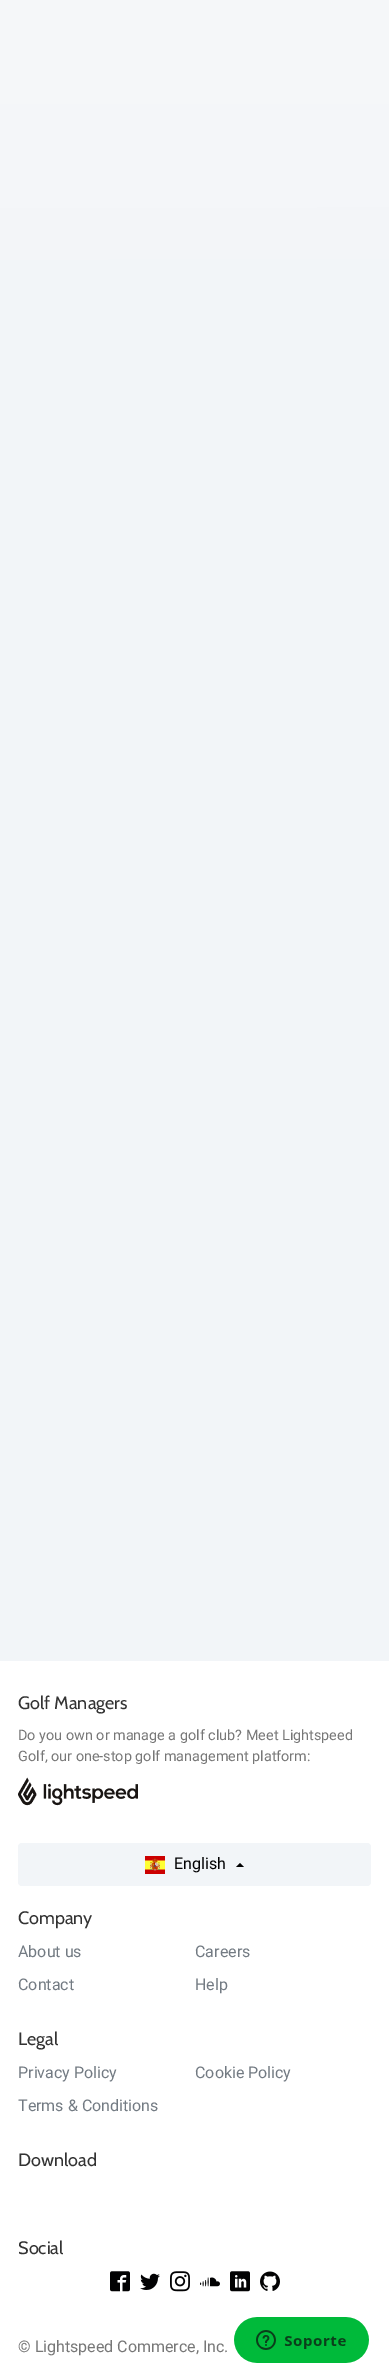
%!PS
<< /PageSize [389 2377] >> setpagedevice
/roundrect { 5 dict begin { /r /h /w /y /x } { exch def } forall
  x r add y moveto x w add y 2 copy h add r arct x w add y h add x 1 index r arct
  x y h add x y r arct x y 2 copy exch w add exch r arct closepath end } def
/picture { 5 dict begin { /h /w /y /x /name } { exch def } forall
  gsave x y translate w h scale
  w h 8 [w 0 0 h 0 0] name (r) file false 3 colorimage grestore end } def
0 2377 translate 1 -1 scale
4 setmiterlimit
1 setgray
0 0 389 2377 rectfill
gsave newpath 0 0 moveto 389 0 lineto 389 1661 lineto 0 1661 lineto closepath clip newpath
<< /ShadingType 2 /ColorSpace /DeviceRGB /Coords [194 -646 195 1661] /Extend [true true] /Function << /FunctionType 3 /Domain [0 1] /Functions [<< /FunctionType 2 /Domain [0 1] /C0 [1 1 1] /C1 [0.949 0.961 0.973] /N 1 >> << /FunctionType 2 /Domain [0 1] /C0 [0.949 0.961 0.973] /C1 [0.949 0.961 0.973] /N 1 >>] /Bounds [0.42] /Encode [0 1 0 1] >> >> shfill grestore
/Cabin-Regular [18 0 0 -18 0 0] selectfont
0.2 setgray
18 1709 moveto (Golf Managers) show
/Roboto-Regular [14.4 0 0 -14.4 0 0] selectfont
0.467 setgray
18 1740 moveto (Do you own or manage a golf club? Meet Lightspeed) show
18 1761 moveto (Golf, our one-stop golf management platform:) show
(img1.rgb) 18 1777 120 29 picture
0.949 0.961 0.973 setrgbcolor
18 1843 353 43 4 roundrect fill
(img2.rgb) 145 1856 20 18 picture
/Roboto-Regular [16 0 0 -16 0 0] selectfont
0.008 0.008 0.012 setrgbcolor
174 1869 moveto (English) show
newpath 244 1867 moveto 236 1867 lineto 240 1863 lineto closepath fill
/Cabin-Regular [18 0 0 -18 0 0] selectfont
0.2 setgray
18 1924 moveto (Company) show
/Roboto-Regular [16 0 0 -16 0 0] selectfont
0.451 0.482 0.514 setrgbcolor
18 1957 moveto (About us) show
195 1957 moveto (Careers) show
18 1990 moveto (Contact) show
195 1990 moveto (Help) show
/Cabin-Regular [18 0 0 -18 0 0] selectfont
0.2 setgray
18 2045 moveto (Legal) show
/Roboto-Regular [16 0 0 -16 0 0] selectfont
0.451 0.482 0.514 setrgbcolor
18 2078 moveto (Privacy Policy) show
195 2078 moveto (Cookie Policy) show
18 2111 moveto (Terms & Conditions) show
/Cabin-Regular [18 0 0 -18 0 0] selectfont
0.2 setgray
18 2166 moveto (Download) show
18 2254 moveto (Social) show
(img3.rgb) 110 2271 20 21 picture
(img4.rgb) 140 2273 20 17 picture
(img5.rgb) 170 2271 20 21 picture
(img6.rgb) 200 2277 20 10 picture
(img7.rgb) 230 2271 20 21 picture
(img8.rgb) 260 2271 20 20 picture
/Roboto-Regular [16 0 0 -16 0 0] selectfont
0.467 setgray
18 2352 moveto (© Lightspeed Commerce, Inc.) show
(img9.rgb) 234 2317 135 46 picture
showpage
